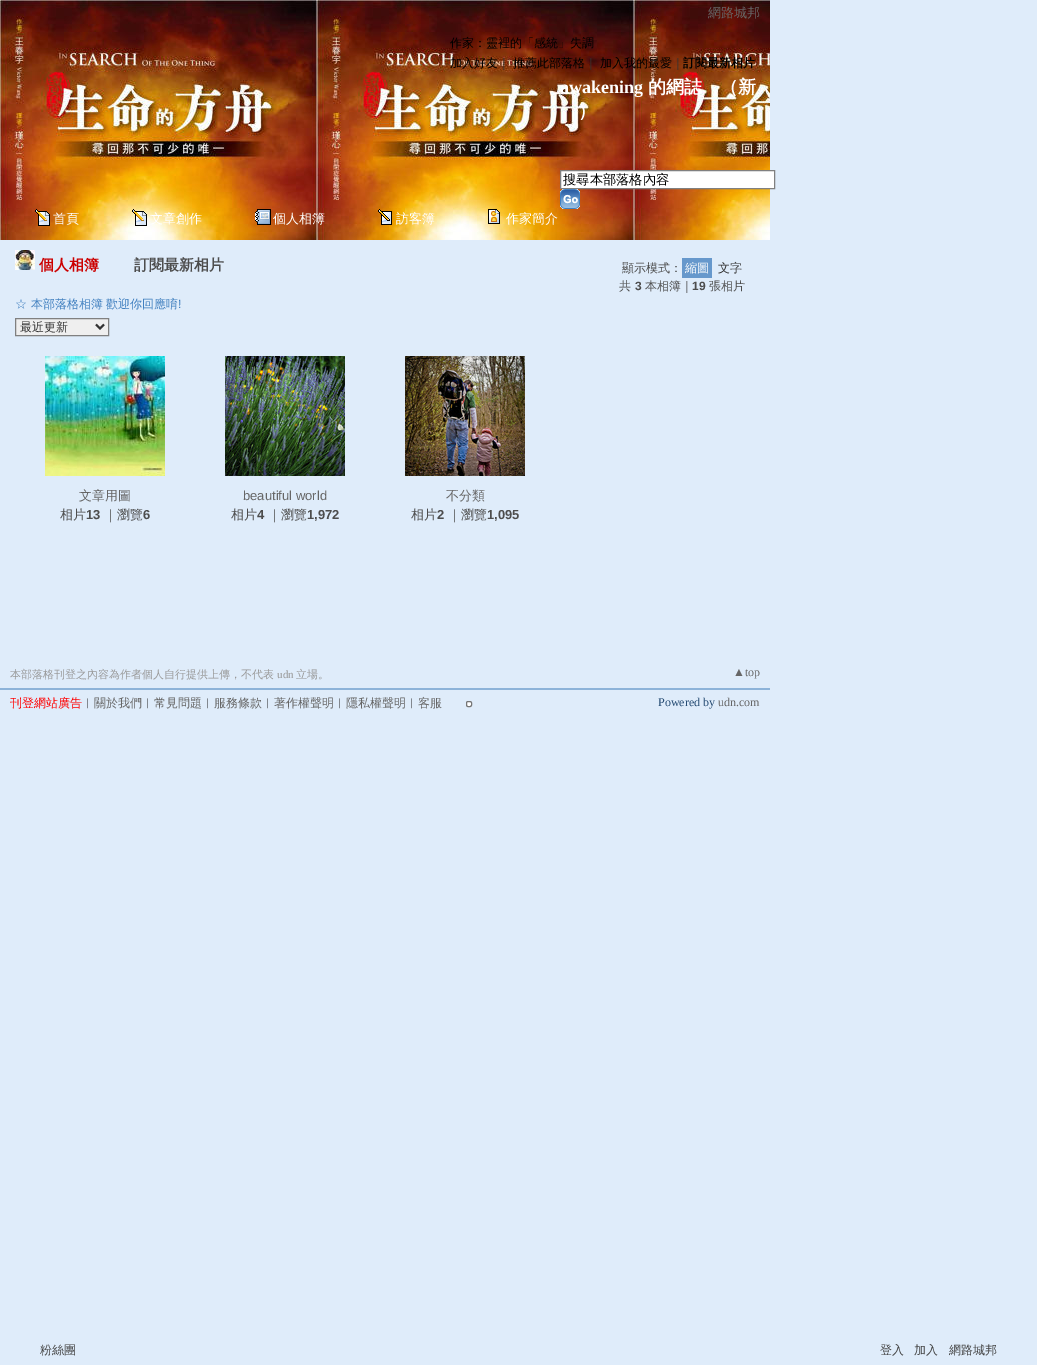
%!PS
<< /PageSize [1037 1365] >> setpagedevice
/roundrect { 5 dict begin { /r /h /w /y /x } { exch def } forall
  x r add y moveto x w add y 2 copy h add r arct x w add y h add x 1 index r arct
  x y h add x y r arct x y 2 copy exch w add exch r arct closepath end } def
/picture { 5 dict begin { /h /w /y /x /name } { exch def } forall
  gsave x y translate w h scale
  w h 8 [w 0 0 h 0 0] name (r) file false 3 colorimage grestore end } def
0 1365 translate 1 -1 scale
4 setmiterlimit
0.875 0.925 0.98 setrgbcolor
0 0 1037 1365 rectfill
(img1.rgb) 0 0 770 240 picture
/WenQuanYiZenHei-Medium [13 0 0 -13 0 0] selectfont
0.4 setgray
708 17 moveto (網路城邦) show
/WenQuanYiZenHei-Medium [12 0 0 -12 0 0] selectfont
0 setgray
450 47 moveto (作家：靈裡的「感統」失調) show
450 67 moveto (加入好友) show
0.2 setgray
498 67 moveto (｜) show
0 setgray
513 67 moveto (推薦此部落格) show
0.2 setgray
585 67 moveto (｜) show
0 setgray
600 67 moveto (加入我的最愛) show
0.2 setgray
672 67 moveto (｜) show
/WenQuanYiZenHei-Bold [12 0 0 -12 0 0] selectfont
0 setgray
683 67 moveto (訂閱最新相片) show
/LiberationSerif-Bold [18 0 0 -18 0 0] selectfont
1 setgray
560 93 moveto (awakening) show
/WenQuanYiZenHei-Bold [18 0 0 -18 0 0] selectfont
648 93 moveto (的網誌) show
720 93 moveto (（新) show
578 117 moveto (）) show
newpath 560.5 170.5 moveto 774.5 170.5 lineto 774.5 188.5 lineto 560.5 188.5 lineto closepath gsave fill grestore
0.502 setgray
stroke
/WenQuanYiZenHei-Medium [13.25 0 0 -13.25 0 0] selectfont
0 setgray
563 184 moveto (搜尋本部落格內容) show
(img2.rgb) 560 189 20 20 picture
(img3.rgb) 35 209 15 17 picture
/WenQuanYiZenHei-Medium [13 0 0 -13 0 0] selectfont
1 setgray
53 223 moveto (首頁) show
(img4.rgb) 132 209 15 17 picture
150 223 moveto (文章創作) show
(img5.rgb) 255 209 16 16 picture
273 223 moveto (個人相簿) show
(img6.rgb) 378 209 14 16 picture
396 223 moveto (訪客簿) show
(img7.rgb) 488 209 12 15 picture
506 223 moveto (作家簡介) show
(img8.rgb) 15 250 20 20 picture
/WenQuanYiZenHei-Bold [15 0 0 -15 0 0] selectfont
0.8 0 0 setrgbcolor
39 270 moveto (個人相簿) show
0.302 setgray
134 270 moveto (訂閱最新相片) show
/WenQuanYiZenHei-Medium [12 0 0 -12 0 0] selectfont
622 272 moveto (顯示模式：) show
0.4 0.596 0.8 setrgbcolor
682 258 30 20 rectfill
1 setgray
685 272 moveto (縮圖) show
0.2 setgray
718 272 moveto (文字) show
0.302 setgray
619 290 moveto (共) show
/LiberationSans-Bold [12 0 0 -12 0 0] selectfont
635 290 moveto (3) show
/WenQuanYiZenHei-Medium [12 0 0 -12 0 0] selectfont
645 290 moveto (本相簿｜) show
/LiberationSans-Bold [12 0 0 -12 0 0] selectfont
692 290 moveto (19) show
/WenQuanYiZenHei-Medium [12 0 0 -12 0 0] selectfont
709 290 moveto (張相片) show
0.255 0.502 0.753 setrgbcolor
15 308 moveto (☆ 本部落格相簿 歡迎你回應唷) show
/LiberationSans-Regular [12 0 0 -12 0 0] selectfont
178 308 moveto (!) show
0.937 setgray
newpath 15.5 318.5 moveto 108.5 318.5 lineto 108.5 335.5 lineto 15.5 335.5 lineto closepath gsave fill grestore
0.502 setgray
stroke
0.2 setgray
2 setlinewidth
newpath 96 324.5 moveto 100 328.5 lineto 104 324.5 lineto stroke
/WenQuanYiZenHei-Medium [12 0 0 -12 0 0] selectfont
20 331 moveto (最近更新) show
(img9.rgb) 45 356 120 120 picture
/WenQuanYiZenHei-Medium [13 0 0 -13 0 0] selectfont
0.4 setgray
79 500 moveto (文章用圖) show
0.302 setgray
60 519 moveto (相片) show
/LiberationSans-Bold [13 0 0 -13 0 0] selectfont
86 519 moveto (13) show
/WenQuanYiZenHei-Medium [13 0 0 -13 0 0] selectfont
104 519 moveto (｜瀏覽) show
/LiberationSans-Bold [13 0 0 -13 0 0] selectfont
143 519 moveto (6) show
(img10.rgb) 225 356 120 120 picture
/LiberationSans-Regular [13 0 0 -13 0 0] selectfont
0.4 setgray
243 500 moveto (beautiful world) show
/WenQuanYiZenHei-Medium [13 0 0 -13 0 0] selectfont
0.302 setgray
231 519 moveto (相片) show
/LiberationSans-Bold [13 0 0 -13 0 0] selectfont
257 519 moveto (4) show
/WenQuanYiZenHei-Medium [13 0 0 -13 0 0] selectfont
268 519 moveto (｜瀏覽) show
/LiberationSans-Bold [13 0 0 -13 0 0] selectfont
307 519 moveto (1,972) show
(img11.rgb) 405 356 120 120 picture
/WenQuanYiZenHei-Medium [13 0 0 -13 0 0] selectfont
0.4 setgray
446 500 moveto (不分類) show
0.302 setgray
411 519 moveto (相片) show
/LiberationSans-Bold [13 0 0 -13 0 0] selectfont
437 519 moveto (2) show
/WenQuanYiZenHei-Medium [13 0 0 -13 0 0] selectfont
448 519 moveto (｜瀏覽) show
/LiberationSans-Bold [13 0 0 -13 0 0] selectfont
487 519 moveto (1,095) show
0.553 0.702 0.851 setrgbcolor
0 688 770 2 rectfill
/WenQuanYiZenHei-Medium [11 0 0 -11 0 0] selectfont
0.6 setgray
10 678 moveto (本部落格刊登之內容為作者個人自行提供上傳，不代表) show
/LiberationSerif-Regular [11 0 0 -11 0 0] selectfont
277 678 moveto (udn) show
/WenQuanYiZenHei-Medium [11 0 0 -11 0 0] selectfont
296 678 moveto (立場。) show
/LiberationSerif-Regular [12 0 0 -12 0 0] selectfont
0.4 setgray
733 676 moveto (▲top) show
/WenQuanYiZenHei-Medium [12 0 0 -12 0 0] selectfont
1 0 0 setrgbcolor
10 707 moveto (刊登網站廣告) show
0.2 setgray
82 707 moveto (︱) show
0.4 setgray
94 707 moveto (關於我們) show
0.2 setgray
142 707 moveto (︱) show
0.4 setgray
154 707 moveto (常見問題) show
0.2 setgray
202 707 moveto (︱) show
0.4 setgray
214 707 moveto (服務條款) show
0.2 setgray
262 707 moveto (︱) show
0.4 setgray
274 707 moveto (著作權聲明) show
0.2 setgray
334 707 moveto (︱) show
0.4 setgray
346 707 moveto (隱私權聲明) show
0.2 setgray
406 707 moveto (︱) show
0.4 setgray
418 707 moveto (客服) show
1 setgray
466.5 701.5 5 5 1.5 roundrect gsave fill grestore
0.463 setgray
1 setlinewidth
stroke
/LiberationSerif-Regular [12 0 0 -12 0 0] selectfont
0.153 0.302 0.455 setrgbcolor
658 706 moveto (Powered by) show
0.4 setgray
718 706 moveto (udn.com) show
/WenQuanYiZenHei-Medium [12 0 0 -12 0 0] selectfont
0.267 setgray
40 1354 moveto (粉絲團) show
880 1354 moveto (登入) show
914 1354 moveto (加入) show
949 1354 moveto (網路城邦) show
showpage
